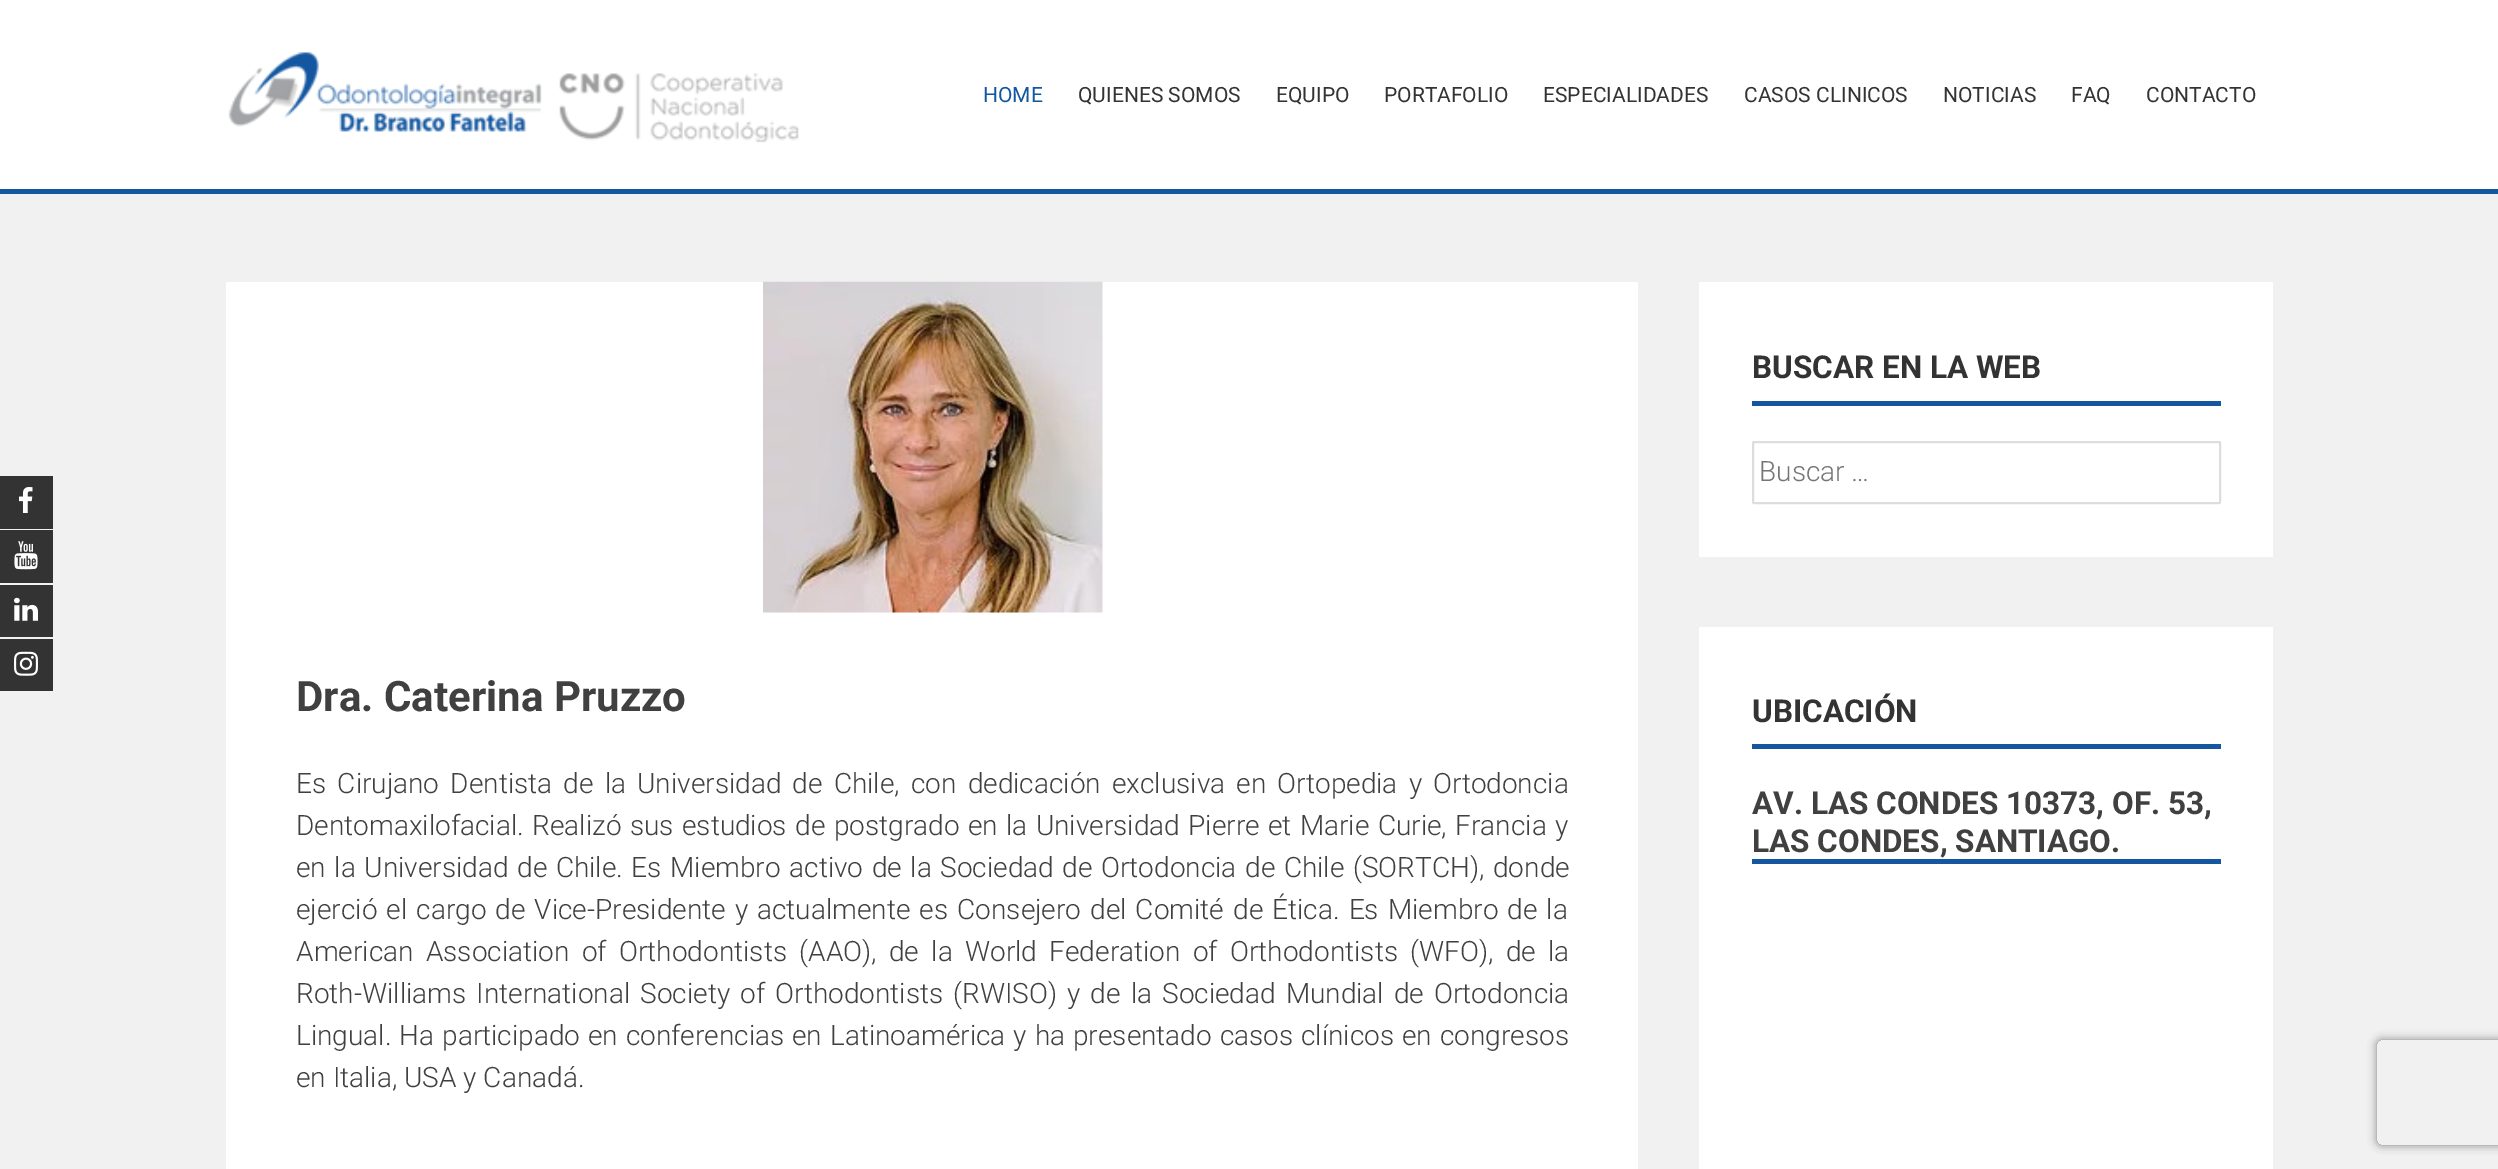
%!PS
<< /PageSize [2498 1169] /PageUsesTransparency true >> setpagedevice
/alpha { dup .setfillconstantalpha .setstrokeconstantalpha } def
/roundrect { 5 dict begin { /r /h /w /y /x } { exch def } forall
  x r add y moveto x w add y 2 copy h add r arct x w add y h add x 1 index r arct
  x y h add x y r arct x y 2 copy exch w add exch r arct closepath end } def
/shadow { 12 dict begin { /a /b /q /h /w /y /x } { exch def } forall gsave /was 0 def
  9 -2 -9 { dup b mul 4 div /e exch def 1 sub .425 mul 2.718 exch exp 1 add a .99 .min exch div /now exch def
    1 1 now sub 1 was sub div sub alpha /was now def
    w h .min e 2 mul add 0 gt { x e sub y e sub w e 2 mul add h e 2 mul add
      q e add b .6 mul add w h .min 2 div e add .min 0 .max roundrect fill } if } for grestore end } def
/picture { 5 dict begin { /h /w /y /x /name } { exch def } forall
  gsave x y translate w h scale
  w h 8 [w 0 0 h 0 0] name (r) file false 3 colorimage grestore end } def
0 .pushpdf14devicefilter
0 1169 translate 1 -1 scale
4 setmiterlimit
0.945 setgray
0 0 2498 1169 rectfill
1 setgray
0 0 2498 189 rectfill
0.078 0.341 0.627 setrgbcolor
0 189 2498 5 rectfill
(img1.rgb) 228 52 571 91 picture
/Roboto-Regular [21 0 0 -21 0 0] selectfont
983 102 moveto (HOME) show
0.2 setgray
1078 102 moveto (QUIENES SOMOS) show
1276 102 moveto (EQUIPO) show
1384 102 moveto (PORTAFOLIO) show
1543 102 moveto (ESPECIALIDADES) show
1744 102 moveto (CASOS CLINICOS) show
1943 102 moveto (NOTICIAS) show
2071 102 moveto (FAQ) show
2146 102 moveto (CONTACTO) show
0 476 53 53 rectfill
(img2.rgb) 19 487 14 26 picture
0 530 53 53 rectfill
(img3.rgb) 14 541 24 29 picture
0 585 53 52 rectfill
(img4.rgb) 14 597 24 24 picture
0 639 53 52 rectfill
(img5.rgb) 14 651 24 25 picture
1 setgray
226 282 1412 887 rectfill
(img6.rgb) 763 281 340 332 picture
/Roboto-Bold [42 0 0 -42 0 0] selectfont
0.251 setgray
296 711 moveto (Dra. Caterina Pruzzo) show
/Roboto-Light [28 0 0 -28 0 0] selectfont
296 793 moveto 4.4 0 32 (Es Cirujano Dentista de la Universidad de Chile, con dedicación exclusiva en Ortopedia y Ortodoncia) widthshow
296 835 moveto 1.6 0 32 (Dentomaxilofacial. Realizó sus estudios de postgrado en la Universidad Pierre et Marie Curie, Francia y) widthshow
296 877 moveto 1.75 0 32 (en la Universidad de Chile. Es Miembro activo de la Sociedad de Ortodoncia de Chile \(SORTCH\), donde) widthshow
296 919 moveto 2.25 0 32 (ejerció el cargo de Vice-Presidente y actualmente es Consejero del Comité de Ética. Es Miembro de la) widthshow
296 961 moveto 5.5 0 32 (American Association of Orthodontists \(AAO\), de la World Federation of Orthodontists \(WFO\), de la) widthshow
296 1003 moveto 3.25 0 32 (Roth-Williams International Society of Orthodontists \(RWISO\) y de la Sociedad Mundial de Ortodoncia) widthshow
296 1045 moveto 1.1 0 32 (Lingual. Ha participado en conferencias en Latinoamérica y ha presentado casos clínicos en congresos) widthshow
296 1087 moveto (en Italia, USA y Canadá.) show
1 setgray
1699 282 574 275 rectfill
0.078 0.341 0.627 setrgbcolor
1752 401 469 5 rectfill
/Roboto-Bold [31.5 0 0 -31.5 0 0] selectfont
0.2 setgray
1752 378 moveto (BUSCAR EN LA WEB) show
0.867 setgray
2 setlinewidth
1753 442 467 61 1 roundrect stroke
/Roboto-Light [28 0 0 -28 0 0] selectfont
0.459 setgray
1759 481 moveto (Buscar …) show
1 setgray
1699 627 574 542 rectfill
0.078 0.341 0.627 setrgbcolor
1752 744 469 5 rectfill
/Roboto-Bold [31.5 0 0 -31.5 0 0] selectfont
0.2 setgray
1752 722 moveto (UBICACIÓN) show
0.078 0.341 0.627 setrgbcolor
1752 859 469 5 rectfill
0.251 setgray
1752 814 moveto (AV. LAS CONDES 10373, OF. 53,) show
1752 852 moveto (LAS CONDES, SANTIAGO.) show
gsave
newpath 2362 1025 moveto 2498 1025 lineto 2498 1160 lineto 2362 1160 lineto closepath 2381 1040 moveto 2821 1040 lineto 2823 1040 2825 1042 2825 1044 curveto 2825 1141 lineto 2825 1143 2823 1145 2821 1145 curveto 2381 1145 lineto 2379 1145 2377 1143 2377 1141 curveto 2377 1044 lineto 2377 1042 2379 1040 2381 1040 curveto closepath eoclip newpath
0.502 setgray
2377 1040 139 105 4 4.5 1 shadow
grestore
.poppdf14devicefilter showpage
